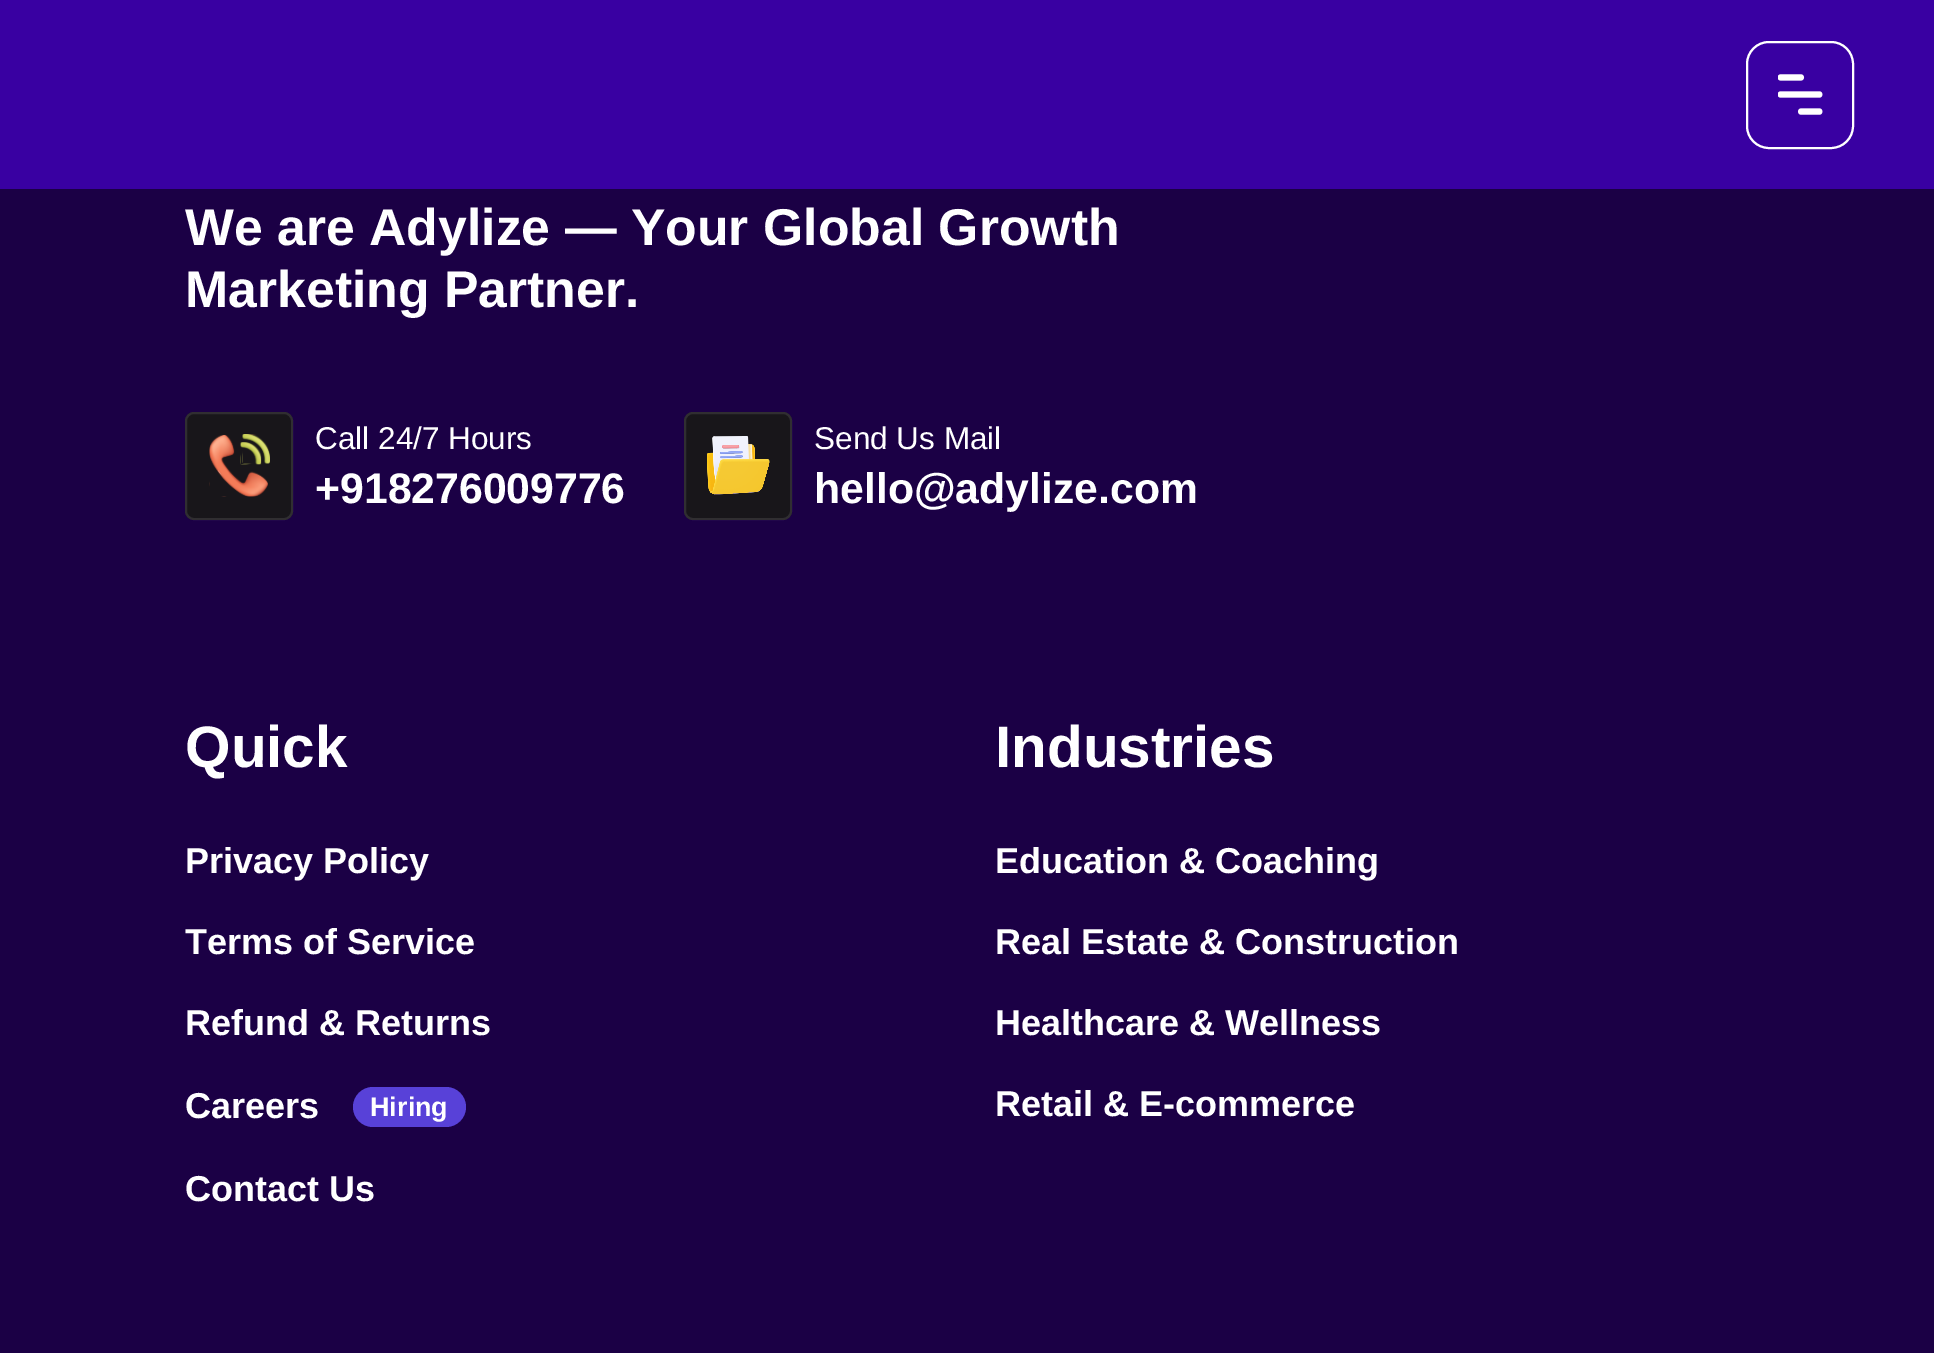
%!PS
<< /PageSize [1934 1353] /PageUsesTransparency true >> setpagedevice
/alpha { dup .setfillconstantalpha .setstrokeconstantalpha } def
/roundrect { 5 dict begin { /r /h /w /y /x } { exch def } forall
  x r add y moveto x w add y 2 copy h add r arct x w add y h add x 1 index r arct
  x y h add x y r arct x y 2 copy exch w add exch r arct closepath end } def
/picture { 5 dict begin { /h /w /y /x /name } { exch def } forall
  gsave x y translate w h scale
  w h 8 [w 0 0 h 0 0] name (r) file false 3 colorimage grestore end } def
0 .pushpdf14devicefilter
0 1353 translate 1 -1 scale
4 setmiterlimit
0.106 0 0.271 setrgbcolor
0 0 1934 1353 rectfill
0.224 0 0.635 setrgbcolor
0 0 1934 189 rectfill
1 setgray
2 setlinewidth
1747 42 106 106 22 roundrect stroke
(img1.rgb) 1778 74 45 41 picture
/LiberationSans-Bold [51.75 0 0 -51.75 0 0] selectfont
185 245 moveto (We are Adylize — Your Global Growth) show
185 307 moveto (Marketing Partner.) show
0.094 0.086 0.102 setrgbcolor
185 412 108 108 9 roundrect fill
0.1 alpha
1 setgray
186 413 106 106 8 roundrect stroke
1 alpha
(img2.rgb) 209 434 61 63 picture
/LiberationSans-Regular [31.5 0 0 -31.5 0 0] selectfont
315 449 moveto (Call 24/7 Hours) show
/LiberationSans-Bold [42.75 0 0 -42.75 0 0] selectfont
315 503 moveto (+918276009776) show
0.094 0.086 0.102 setrgbcolor
684 412 108 108 9 roundrect fill
0.1 alpha
1 setgray
685 413 106 106 8 roundrect stroke
1 alpha
(img3.rgb) 707 436 63 59 picture
/LiberationSans-Regular [31.5 0 0 -31.5 0 0] selectfont
814 449 moveto (Send Us Mail) show
/LiberationSans-Bold [42.75 0 0 -42.75 0 0] selectfont
814 503 moveto (hello@adylize.com) show
/LiberationSans-Bold [58.5 0 0 -58.5 0 0] selectfont
185 767 moveto (Quick) show
/LiberationSans-Bold [36 0 0 -36 0 0] selectfont
185 873 moveto (Privacy Policy) show
185 954 moveto (Terms of Service) show
185 1035 moveto (Refund & Returns) show
185 1118 moveto (Careers) show
0.345 0.255 0.847 setrgbcolor
353 1087 113 40 20 roundrect fill
/LiberationSans-Bold [27 0 0 -27 0 0] selectfont
1 setgray
370 1116 moveto (Hiring) show
/LiberationSans-Bold [36 0 0 -36 0 0] selectfont
185 1201 moveto (Contact Us) show
/LiberationSans-Bold [58.5 0 0 -58.5 0 0] selectfont
995 767 moveto (Industries) show
/LiberationSans-Bold [36 0 0 -36 0 0] selectfont
995 873 moveto (Education & Coaching) show
995 954 moveto (Real Estate & Construction) show
995 1035 moveto (Healthcare & Wellness) show
995 1116 moveto (Retail & E-commerce) show
.poppdf14devicefilter showpage
